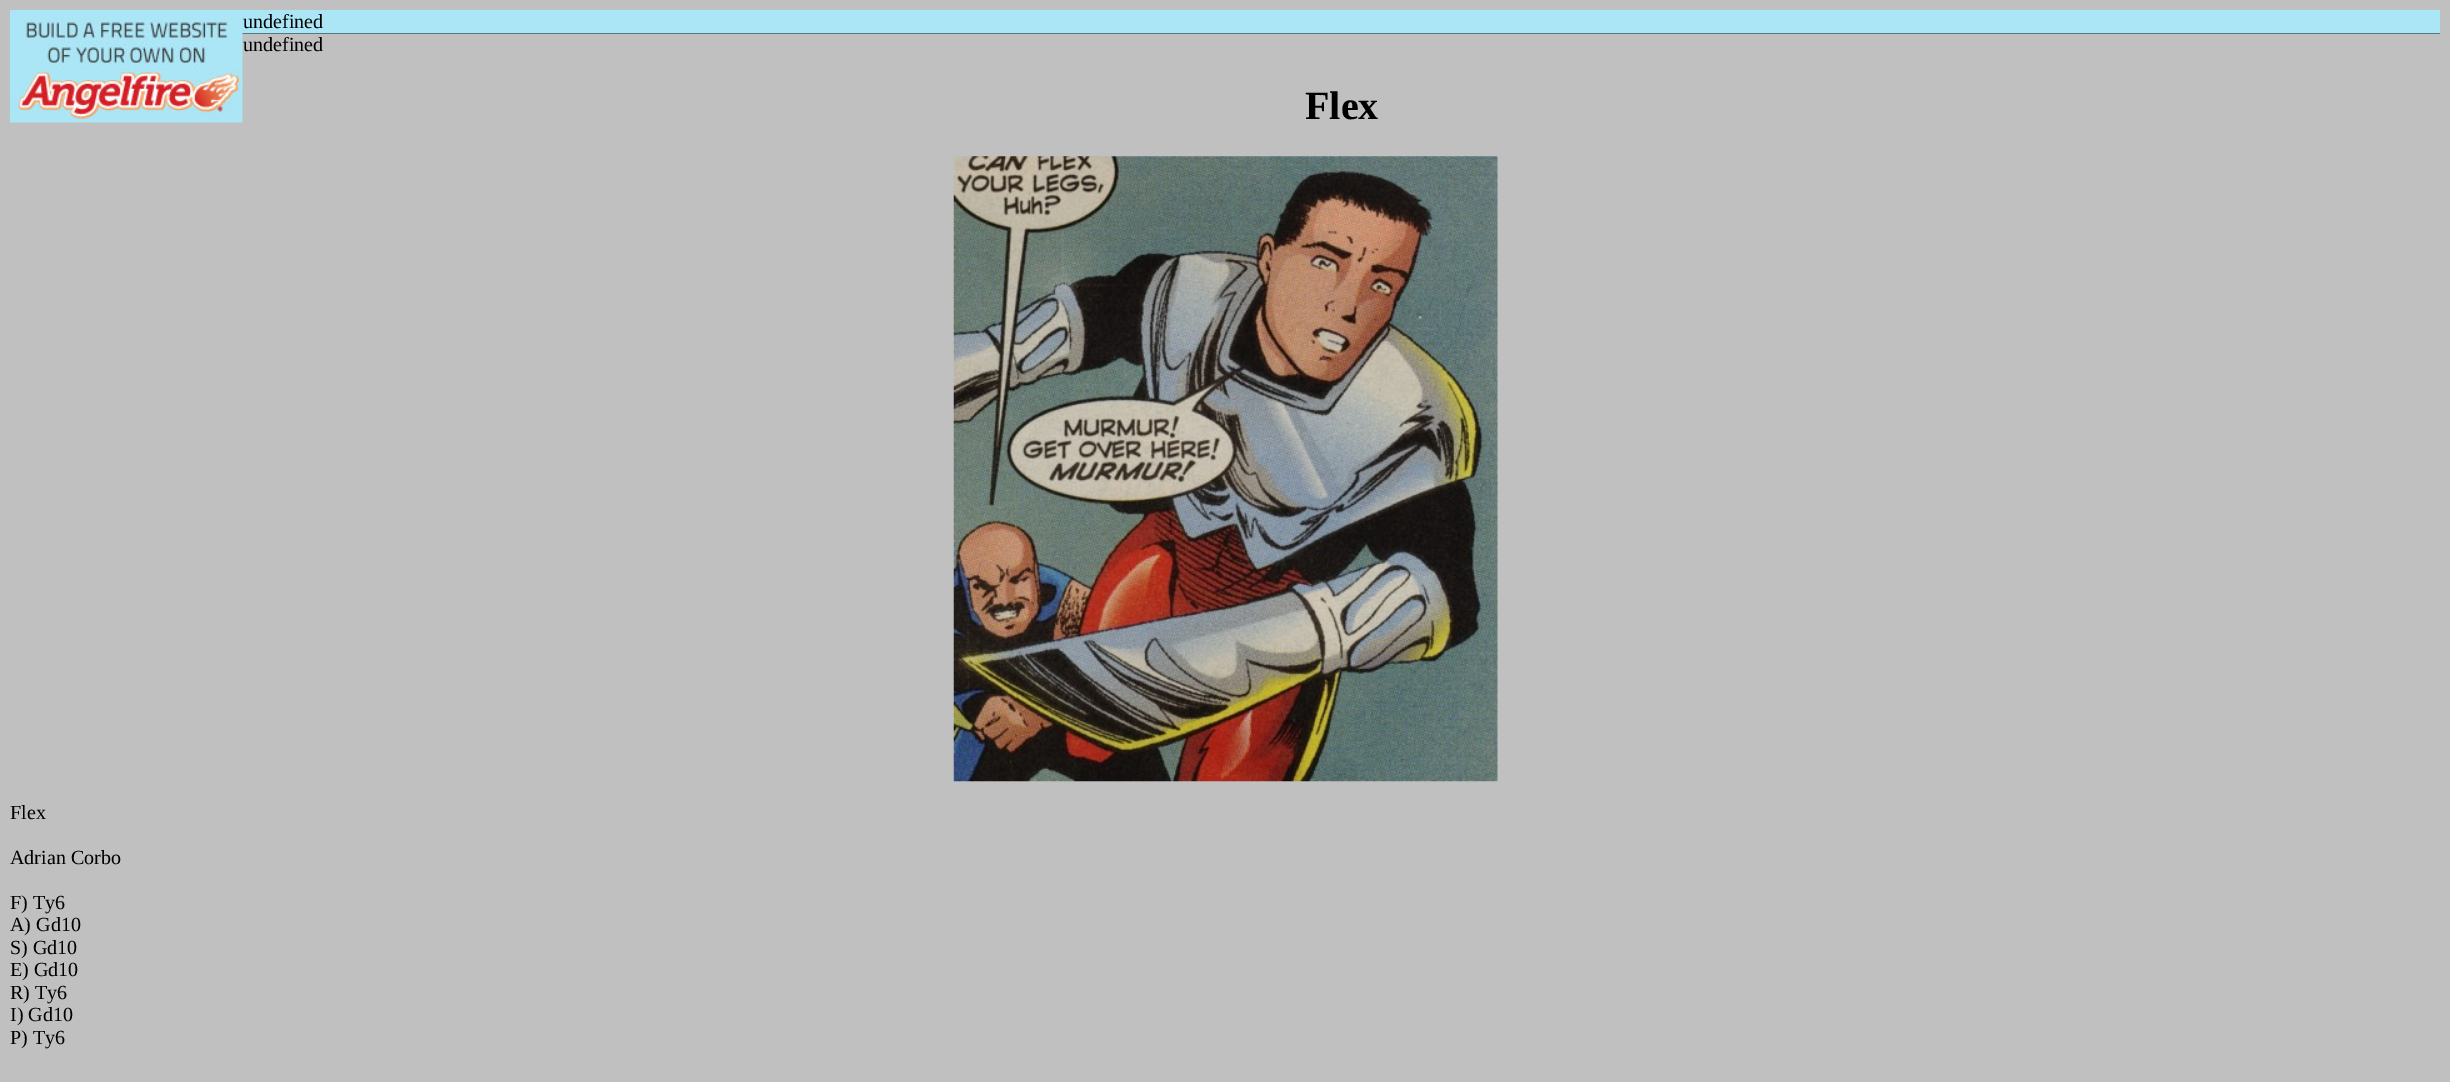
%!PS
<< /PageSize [2450 1082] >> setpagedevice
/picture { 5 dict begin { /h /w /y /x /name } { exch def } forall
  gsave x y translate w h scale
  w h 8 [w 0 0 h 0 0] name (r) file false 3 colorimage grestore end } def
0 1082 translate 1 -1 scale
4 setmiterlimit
0.753 setgray
0 0 2450 1082 rectfill
0.671 0.902 0.965 setrgbcolor
10 10 2430 23 rectfill
0.314 0.478 0.529 setrgbcolor
242 33 2198 1 rectfill
/LiberationSerif-Regular [20 0 0 -20 0 0] selectfont
0 setgray
243 51 moveto (undefined) show
(img1.rgb) 10 20 233 103 picture
243 28 moveto (undefined) show
/LiberationSerif-Bold [40 0 0 -40 0 0] selectfont
1305 119 moveto (Flex) show
(img2.rgb) 953 156 545 626 picture
/LiberationSerif-Regular [20 0 0 -20 0 0] selectfont
10 819 moveto (Flex) show
10 864 moveto (Adrian Corbo) show
10 909 moveto (F\) Ty6) show
10 931 moveto (A\) Gd10) show
10 954 moveto (S\) Gd10) show
10 976 moveto (E\) Gd10) show
10 999 moveto (R\) Ty6) show
10 1021 moveto (I\) Gd10) show
10 1044 moveto (P\) Ty6) show
showpage
